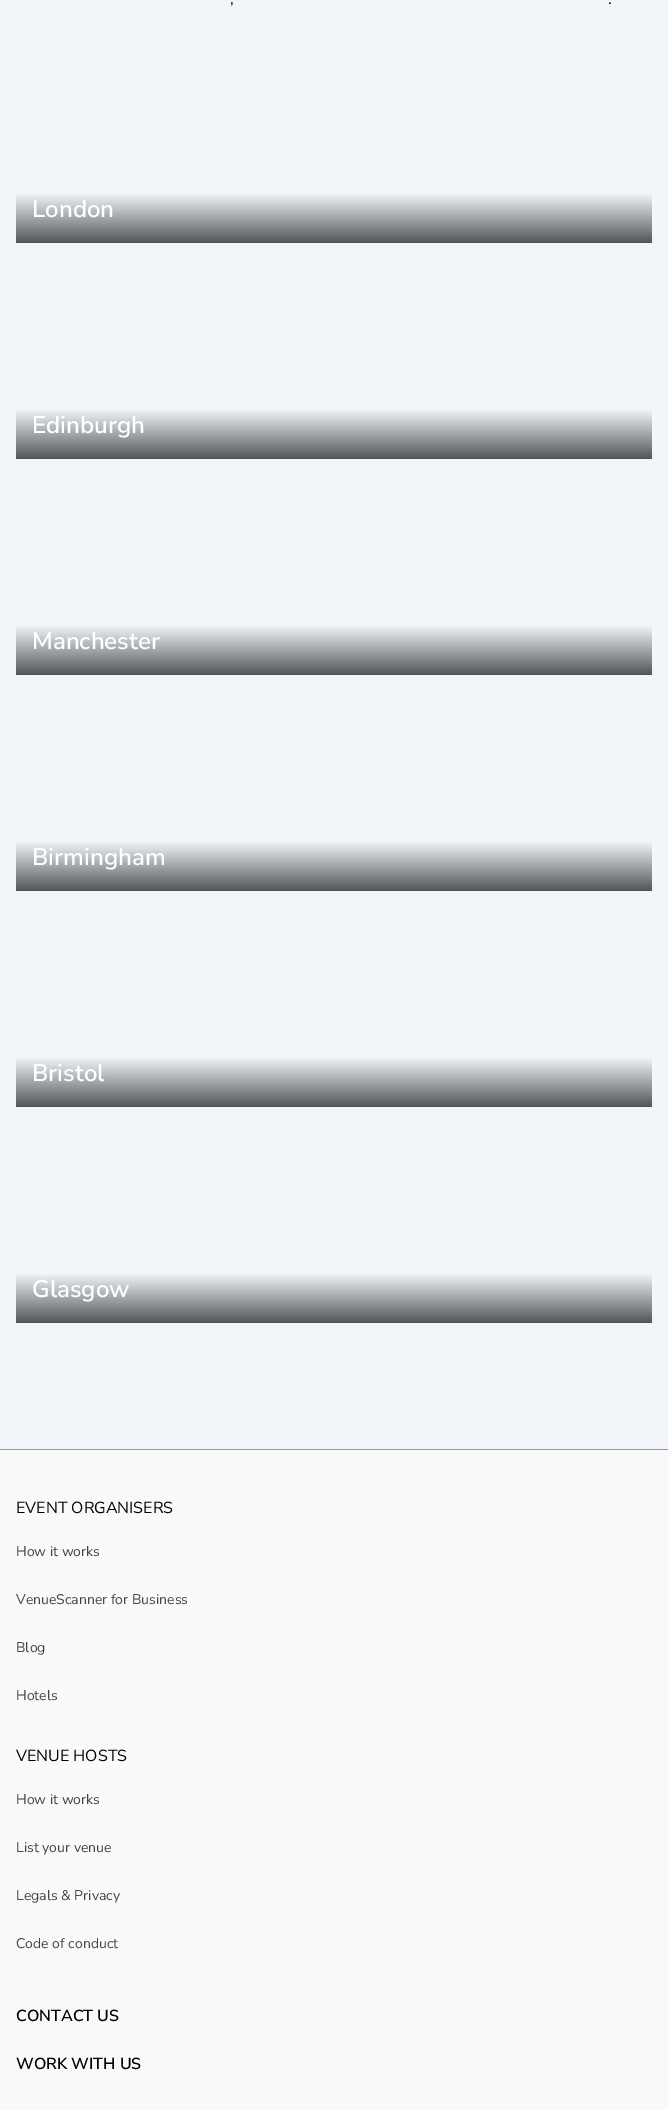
%!PS
<< /PageSize [668 2110] >> setpagedevice
0 2110 translate 1 -1 scale
4 setmiterlimit
0.949 0.965 0.98 setrgbcolor
0 0 668 2110 rectfill
/NunitoSans-Regular [16 0 0 -16 0 0] selectfont
0.122 0.125 0.129 setrgbcolor
230 4 moveto (,) show
608 4 moveto (.) show
gsave newpath 16 194 moveto 652 194 lineto 652 243 lineto 16 243 lineto closepath clip newpath
<< /ShadingType 2 /ColorSpace /DeviceRGB /Coords [334 193 334 243] /Extend [true true] /Function << /FunctionType 3 /Domain [0 1] /Functions [<< /FunctionType 2 /Domain [0 1] /C0 [0.949 0.965 0.98] /C1 [0.333 0.337 0.345] /N 1 >> << /FunctionType 2 /Domain [0 1] /C0 [0.333 0.337 0.345] /C1 [0.333 0.337 0.345] /N 1 >>] /Bounds [0.99] /Encode [0 1 0 1] >> >> shfill grestore
/NunitoSans-SemiBold [24 0 0 -24 0 0] selectfont
1 setgray
32 217 moveto (London) show
gsave newpath 16 410 moveto 652 410 lineto 652 459 lineto 16 459 lineto closepath clip newpath
<< /ShadingType 2 /ColorSpace /DeviceRGB /Coords [334 409 334 459] /Extend [true true] /Function << /FunctionType 3 /Domain [0 1] /Functions [<< /FunctionType 2 /Domain [0 1] /C0 [0.949 0.965 0.98] /C1 [0.333 0.337 0.345] /N 1 >> << /FunctionType 2 /Domain [0 1] /C0 [0.333 0.337 0.345] /C1 [0.333 0.337 0.345] /N 1 >>] /Bounds [0.99] /Encode [0 1 0 1] >> >> shfill grestore
32 433 moveto (Edinburgh) show
gsave newpath 16 626 moveto 652 626 lineto 652 675 lineto 16 675 lineto closepath clip newpath
<< /ShadingType 2 /ColorSpace /DeviceRGB /Coords [334 625 334 675] /Extend [true true] /Function << /FunctionType 3 /Domain [0 1] /Functions [<< /FunctionType 2 /Domain [0 1] /C0 [0.949 0.965 0.98] /C1 [0.333 0.337 0.345] /N 1 >> << /FunctionType 2 /Domain [0 1] /C0 [0.333 0.337 0.345] /C1 [0.333 0.337 0.345] /N 1 >>] /Bounds [0.99] /Encode [0 1 0 1] >> >> shfill grestore
32 649 moveto (Manchester) show
gsave newpath 16 842 moveto 652 842 lineto 652 891 lineto 16 891 lineto closepath clip newpath
<< /ShadingType 2 /ColorSpace /DeviceRGB /Coords [334 841 334 891] /Extend [true true] /Function << /FunctionType 3 /Domain [0 1] /Functions [<< /FunctionType 2 /Domain [0 1] /C0 [0.949 0.965 0.98] /C1 [0.333 0.337 0.345] /N 1 >> << /FunctionType 2 /Domain [0 1] /C0 [0.333 0.337 0.345] /C1 [0.333 0.337 0.345] /N 1 >>] /Bounds [0.99] /Encode [0 1 0 1] >> >> shfill grestore
32 865 moveto (Birmingham) show
gsave newpath 16 1058 moveto 652 1058 lineto 652 1107 lineto 16 1107 lineto closepath clip newpath
<< /ShadingType 2 /ColorSpace /DeviceRGB /Coords [334 1057 334 1107] /Extend [true true] /Function << /FunctionType 3 /Domain [0 1] /Functions [<< /FunctionType 2 /Domain [0 1] /C0 [0.949 0.965 0.98] /C1 [0.333 0.337 0.345] /N 1 >> << /FunctionType 2 /Domain [0 1] /C0 [0.333 0.337 0.345] /C1 [0.333 0.337 0.345] /N 1 >>] /Bounds [0.99] /Encode [0 1 0 1] >> >> shfill grestore
32 1081 moveto (Bristol) show
gsave newpath 16 1274 moveto 652 1274 lineto 652 1323 lineto 16 1323 lineto closepath clip newpath
<< /ShadingType 2 /ColorSpace /DeviceRGB /Coords [334 1273 334 1323] /Extend [true true] /Function << /FunctionType 3 /Domain [0 1] /Functions [<< /FunctionType 2 /Domain [0 1] /C0 [0.949 0.965 0.98] /C1 [0.333 0.337 0.345] /N 1 >> << /FunctionType 2 /Domain [0 1] /C0 [0.333 0.337 0.345] /C1 [0.333 0.337 0.345] /N 1 >>] /Bounds [0.99] /Encode [0 1 0 1] >> >> shfill grestore
32 1297 moveto (Glasgow) show
0.976 setgray
0 1450 668 660 rectfill
0.592 setgray
0 1449 668 1 rectfill
/NunitoSans-Regular [16 0 0 -16 0 0] selectfont
0 setgray
16 1513 moveto (EVENT ORGANISERS) show
/NunitoSans-Regular [14 0 0 -14 0 0] selectfont
0.259 setgray
16 1556 moveto (How it works) show
16 1604 moveto (VenueScanner for Business) show
16 1652 moveto (Blog) show
16 1700 moveto (Hotels) show
/NunitoSans-Regular [16 0 0 -16 0 0] selectfont
0 setgray
16 1761 moveto (VENUE HOSTS) show
/NunitoSans-Regular [14 0 0 -14 0 0] selectfont
0.259 setgray
16 1804 moveto (How it works) show
16 1852 moveto (List your venue) show
16 1900 moveto (Legals & Privacy) show
16 1948 moveto (Code of conduct) show
/NunitoSans-SemiBold [16 0 0 -16 0 0] selectfont
0 setgray
16 2021 moveto (CONTACT US) show
16 2069 moveto (WORK WITH US) show
showpage
